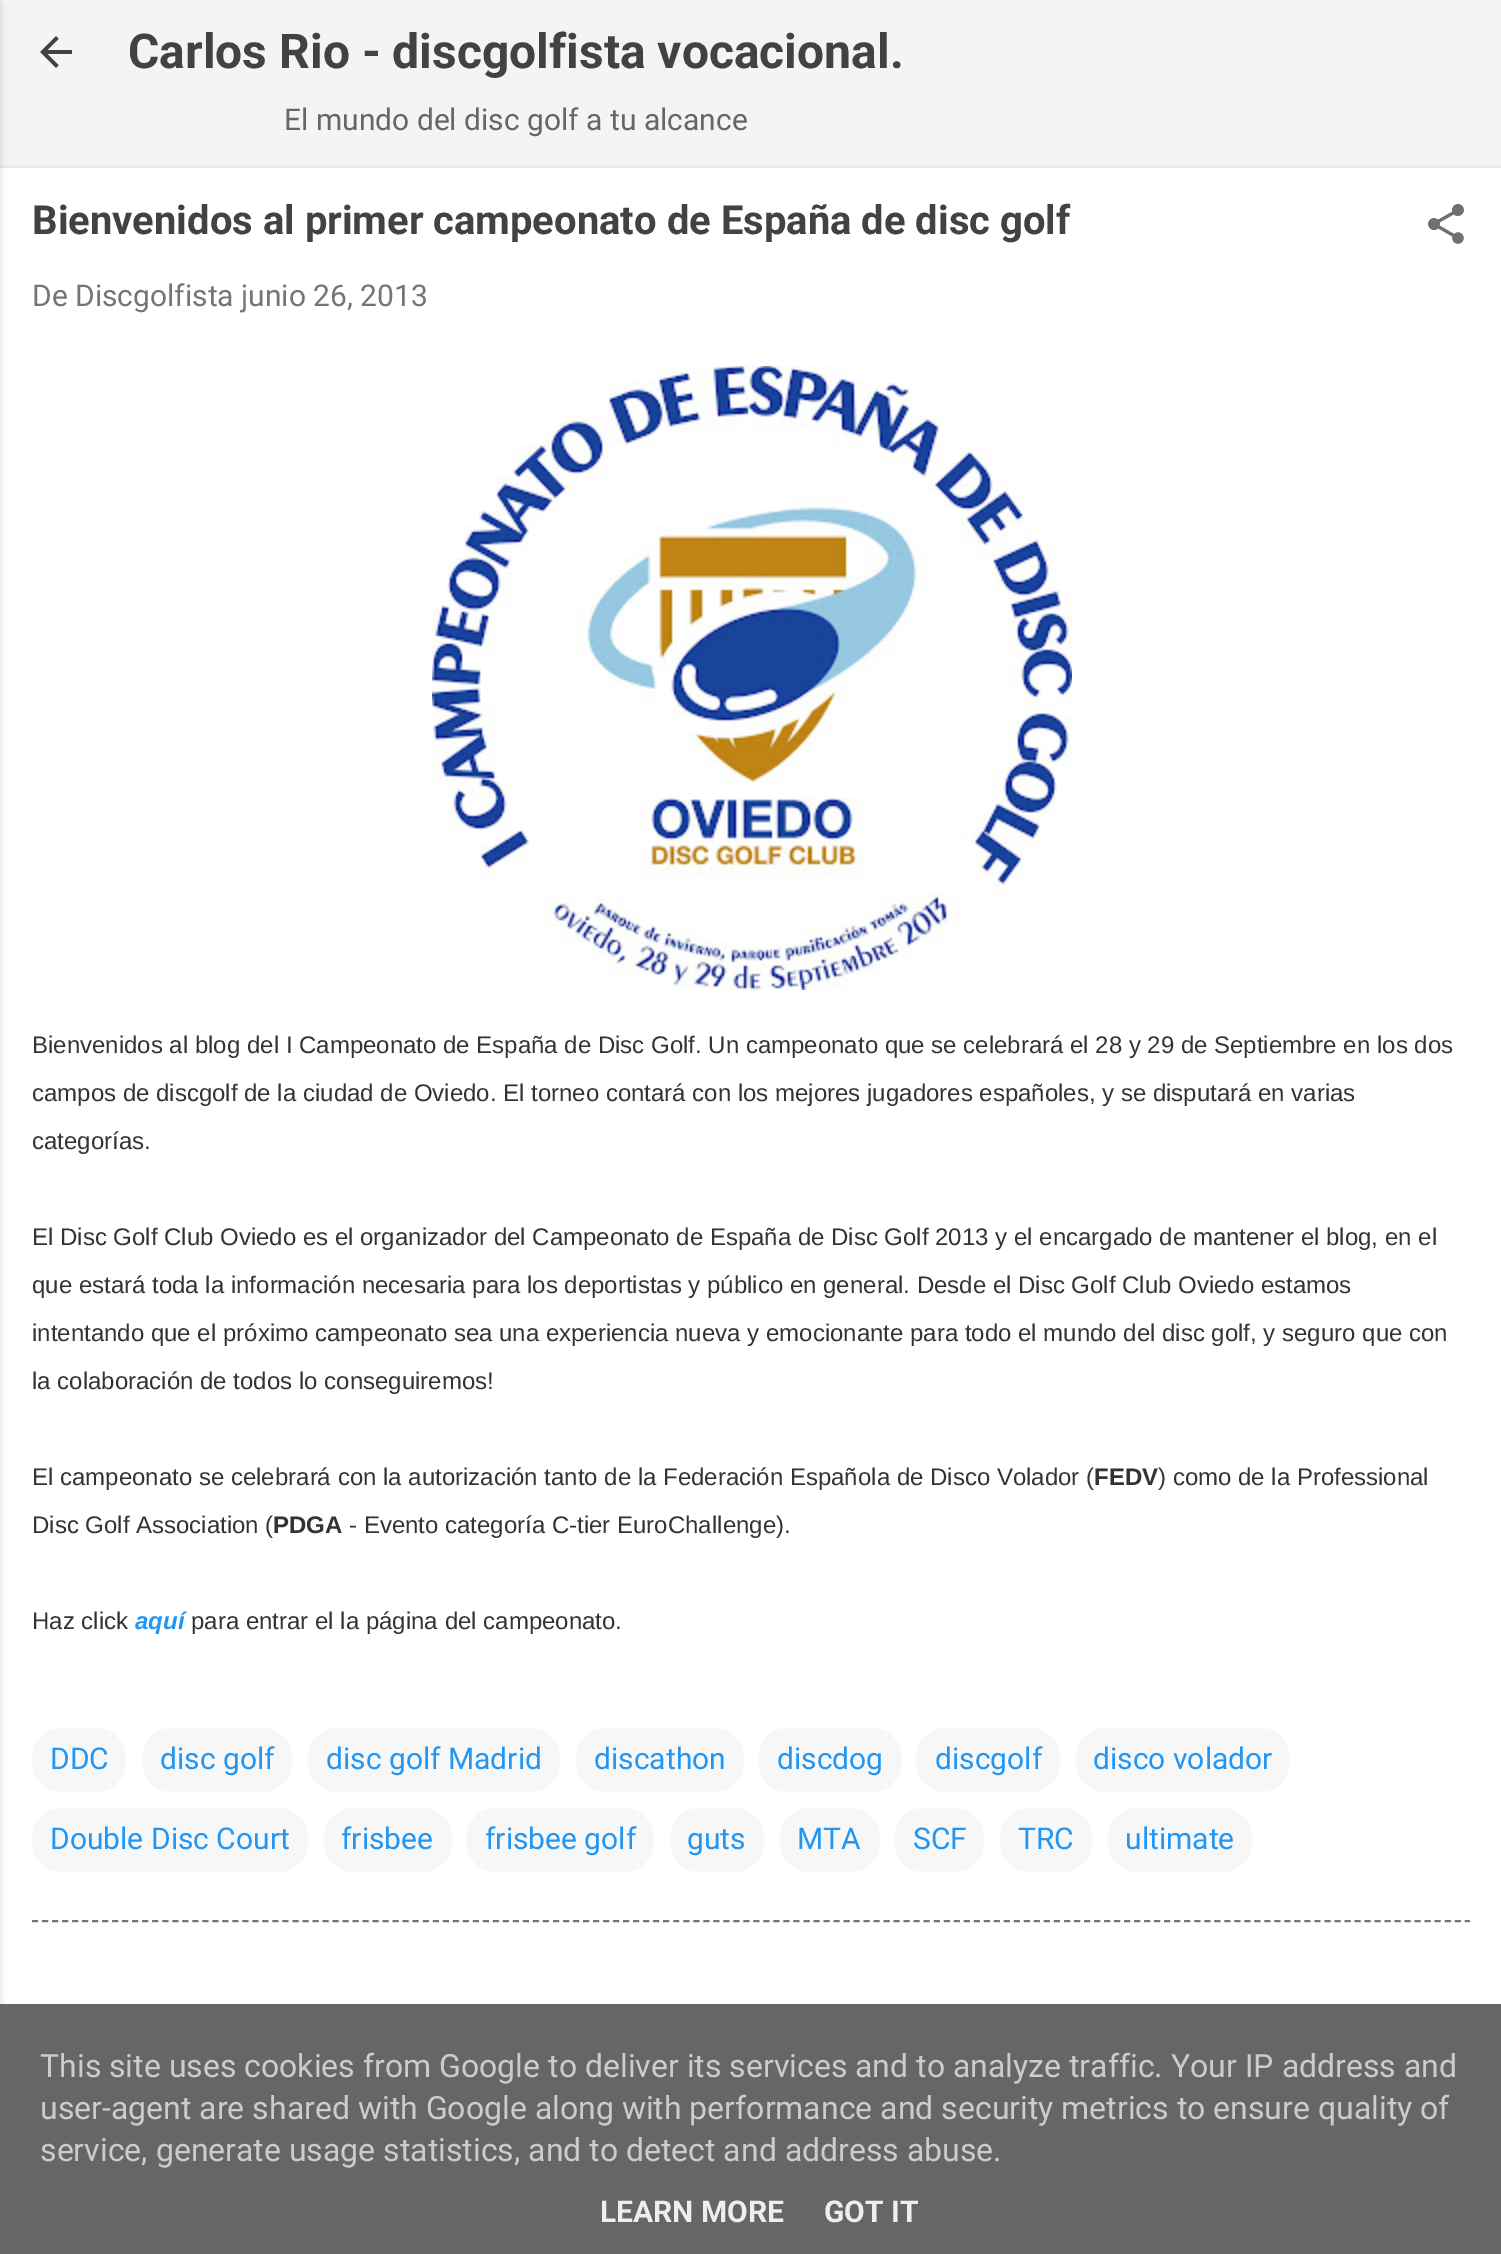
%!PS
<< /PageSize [1501 2254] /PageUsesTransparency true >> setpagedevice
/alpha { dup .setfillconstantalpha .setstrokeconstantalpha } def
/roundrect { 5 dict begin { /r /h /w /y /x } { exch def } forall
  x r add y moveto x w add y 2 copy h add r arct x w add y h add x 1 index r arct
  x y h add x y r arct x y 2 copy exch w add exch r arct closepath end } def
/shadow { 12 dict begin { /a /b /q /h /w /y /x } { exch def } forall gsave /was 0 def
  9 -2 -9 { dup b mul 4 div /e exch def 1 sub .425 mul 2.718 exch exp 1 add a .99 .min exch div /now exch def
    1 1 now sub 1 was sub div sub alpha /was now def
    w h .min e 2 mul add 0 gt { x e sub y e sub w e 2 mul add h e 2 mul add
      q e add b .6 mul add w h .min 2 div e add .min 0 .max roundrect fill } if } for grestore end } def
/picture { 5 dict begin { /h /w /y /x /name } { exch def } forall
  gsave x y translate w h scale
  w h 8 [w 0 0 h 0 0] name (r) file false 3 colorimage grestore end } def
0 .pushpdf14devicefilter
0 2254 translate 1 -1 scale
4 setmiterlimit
0.957 setgray
0 0 1501 2254 rectfill
0.235 0.251 0.263 setrgbcolor
0 170 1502 1866 0 4 0.3 shadow
1 setgray
0 168 1501 1836 rectfill
0 setgray
-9 2 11 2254 0 3 0.1 shadow
(img1.rgb) 40 36 32 32 picture
/Roboto-Bold [48 0 0 -48 0 0] selectfont
0.259 setgray
128 68 moveto (Carlos Rio - discgolfista vocacional.) show
/Roboto-Regular [30 0 0 -30 0 0] selectfont
0.4 setgray
284 130 moveto (El mundo del disc golf a tu alcance) show
/Roboto-Bold [40 0 0 -40 0 0] selectfont
0.259 setgray
32 234 moveto (Bienvenidos al primer campeonato de España de disc golf) show
(img2.rgb) 1428 204 36 40 picture
/Roboto-Regular [30 0 0 -30 0 0] selectfont
0.459 setgray
32 306 moveto (De Discgolfista junio 26, 2013) show
(img3.rgb) 432 366 640 624 picture
/LiberationSans-Regular [24 0 0 -24 0 0] selectfont
0.2 setgray
32 1053 moveto (Bienvenidos al blog del I Campeonato de España de Disc Golf. Un campeonato que se celebrará el 28 y 29 de Septiembre en los dos) show
32 1101 moveto (campos de discgolf de la ciudad de Oviedo. El torneo contará con los mejores jugadores españoles, y se disputará en varias) show
32 1149 moveto (categorías.) show
32 1245 moveto (El Disc Golf Club Oviedo es el organizador del Campeonato de España de Disc Golf 2013 y el encargado de mantener el blog, en el) show
32 1293 moveto (que estará toda la información necesaria para los deportistas y público en general. Desde el Disc Golf Club Oviedo estamos) show
32 1341 moveto (intentando que el próximo campeonato sea una experiencia nueva y emocionante para todo el mundo del disc golf, y seguro que con) show
32 1389 moveto (la colaboración de todos lo conseguiremos!) show
32 1485 moveto (El campeonato se celebrará con la autorización tanto de la Federación Española de Disco Volador \() show
/LiberationSans-Bold [24 0 0 -24 0 0] selectfont
1094 1485 moveto (FEDV) show
/LiberationSans-Regular [24 0 0 -24 0 0] selectfont
1158 1485 moveto (\) como de la Professional) show
32 1533 moveto (Disc Golf Association \() show
/LiberationSans-Bold [24 0 0 -24 0 0] selectfont
273 1533 moveto (PDGA) show
/LiberationSans-Regular [24 0 0 -24 0 0] selectfont
349 1533 moveto (- Evento categoría C-tier EuroChallenge\).) show
1 setgray
342 1532 1 1 rectfill
0.2 setgray
32 1629 moveto (Haz click) show
/LiberationSans-BoldItalic [24 0 0 -24 0 0] selectfont
0.129 0.588 0.953 setrgbcolor
135 1629 moveto (aquí) show
/LiberationSans-Regular [24 0 0 -24 0 0] selectfont
0.2 setgray
191 1629 moveto (para entrar el la página del campeonato.) show
0.969 setgray
32 1728 94 64 30 roundrect fill
/Roboto-Regular [30 0 0 -30 0 0] selectfont
0.129 0.588 0.953 setrgbcolor
50 1769 moveto (DDC) show
0.969 setgray
142 1728 150 64 30 roundrect fill
0.129 0.588 0.953 setrgbcolor
160 1769 moveto (disc golf) show
0.969 setgray
308 1728 252 64 30 roundrect fill
0.129 0.588 0.953 setrgbcolor
326 1769 moveto (disc golf Madrid) show
0.969 setgray
576 1728 168 64 30 roundrect fill
0.129 0.588 0.953 setrgbcolor
594 1769 moveto (discathon) show
0.969 setgray
758 1728 144 64 30 roundrect fill
0.129 0.588 0.953 setrgbcolor
777 1769 moveto (discdog) show
0.969 setgray
916 1728 144 64 30 roundrect fill
0.129 0.588 0.953 setrgbcolor
935 1769 moveto (discgolf) show
0.969 setgray
1076 1728 214 64 30 roundrect fill
0.129 0.588 0.953 setrgbcolor
1093 1769 moveto (disco volador) show
0.969 setgray
32 1808 276 64 30 roundrect fill
0.129 0.588 0.953 setrgbcolor
50 1849 moveto (Double Disc Court) show
0.969 setgray
324 1808 128 64 30 roundrect fill
0.129 0.588 0.953 setrgbcolor
341 1849 moveto (frisbee) show
0.969 setgray
466 1808 188 64 30 roundrect fill
0.129 0.588 0.953 setrgbcolor
485 1849 moveto (frisbee golf) show
0.969 setgray
670 1808 94 64 30 roundrect fill
0.129 0.588 0.953 setrgbcolor
687 1849 moveto (guts) show
0.969 setgray
780 1808 100 64 30 roundrect fill
0.129 0.588 0.953 setrgbcolor
797 1849 moveto (MTA) show
0.969 setgray
894 1808 90 64 30 roundrect fill
0.129 0.588 0.953 setrgbcolor
913 1849 moveto (SCF) show
0.969 setgray
1000 1808 92 64 30 roundrect fill
0.129 0.588 0.953 setrgbcolor
1018 1849 moveto (TRC) show
0.969 setgray
1108 1808 144 64 30 roundrect fill
0.129 0.588 0.953 setrgbcolor
1125 1849 moveto (ultimate) show
0.459 setgray
2 setlinewidth
[6 4.02] 0 setdash
newpath 32 1921 moveto 1470 1921 lineto stroke
0.4 setgray
0 2004 1501 250 rectfill
/Roboto-Regular [32 0 0 -32 0 0] selectfont
0.8 setgray
40 2077 moveto (This site uses cookies from Google to deliver its services and to analyze traffic. Your IP address and) show
40 2119 moveto (user-agent are shared with Google along with performance and security metrics to ensure quality of) show
40 2161 moveto (service, generate usage statistics, and to detect and address abuse.) show
/Roboto-Bold [30 0 0 -30 0 0] selectfont
0.933 setgray
600 2222 moveto (LEARN MORE) show
824 2222 moveto (GOT IT) show
.poppdf14devicefilter showpage
